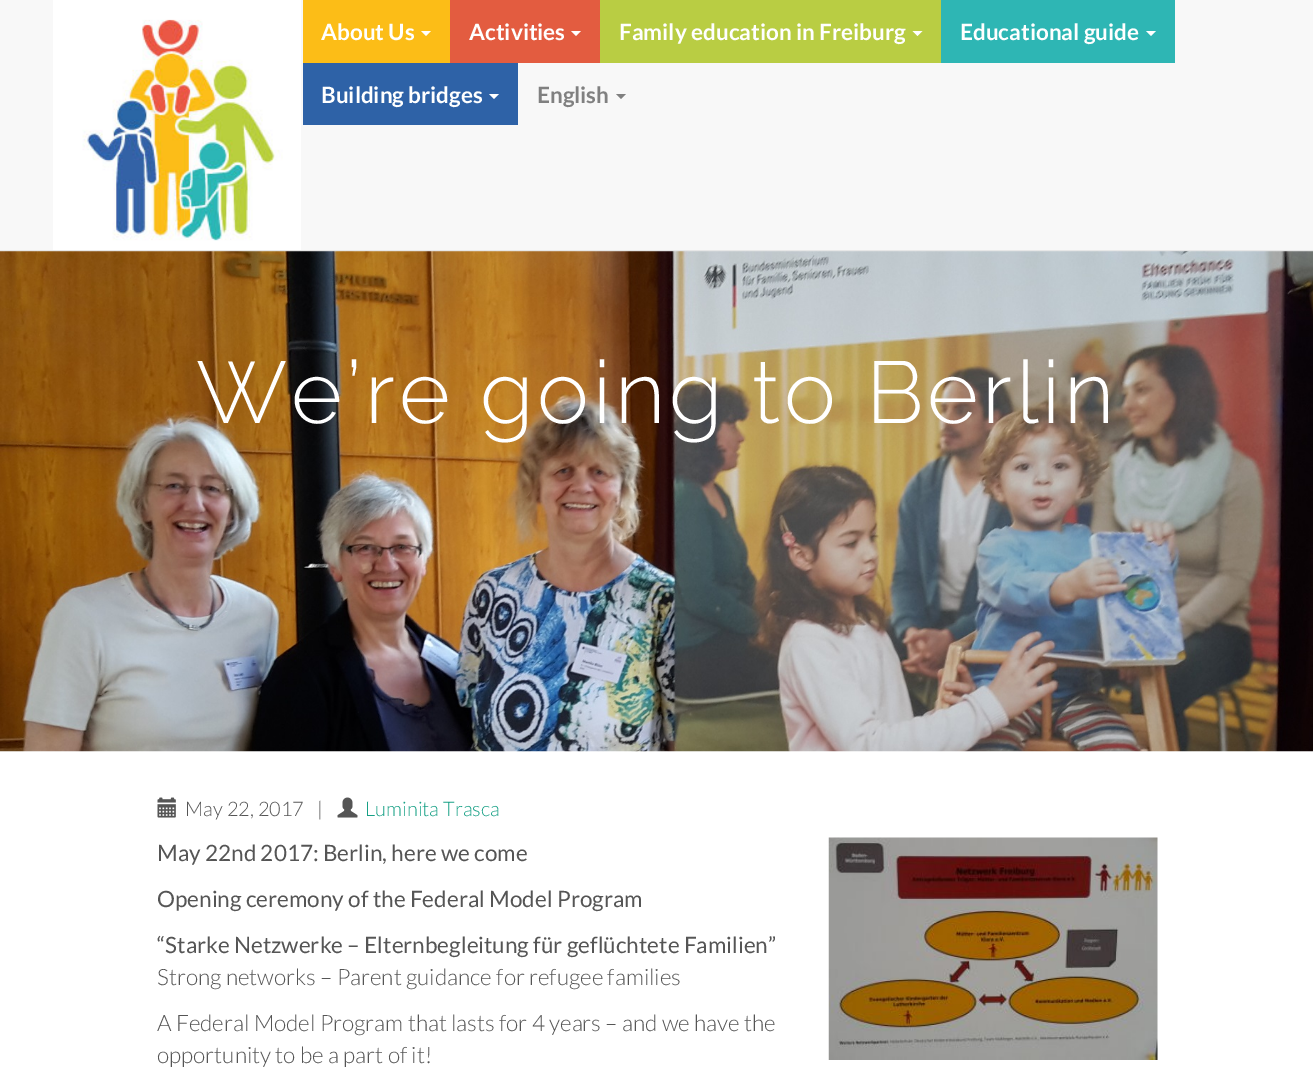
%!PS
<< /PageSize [1313 1079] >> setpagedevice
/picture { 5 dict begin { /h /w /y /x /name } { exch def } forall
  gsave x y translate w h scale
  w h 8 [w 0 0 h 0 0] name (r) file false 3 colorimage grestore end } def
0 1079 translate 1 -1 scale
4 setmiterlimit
1 setgray
0 0 1313 1079 rectfill
0.973 setgray
0 0 1313 250 rectfill
0.906 setgray
0 250 1313 1 rectfill
(img1.rgb) 53 0 248 250 picture
0.988 0.741 0.09 setrgbcolor
303 0 147 63 rectfill
/Lato-Bold [22.5 0 0 -22.5 0 0] selectfont
1 setgray
321 40 moveto (About Us) show
newpath 421 31 moveto 431 31 lineto 426 36 lineto closepath fill
0.89 0.361 0.251 setrgbcolor
450 0 150 63 rectfill
1 setgray
469 40 moveto (Activities) show
newpath 571 31 moveto 581 31 lineto 576 36 lineto closepath fill
0.725 0.804 0.263 setrgbcolor
600 0 341 63 rectfill
1 setgray
619 40 moveto (Family education in Freiburg) show
newpath 912.5 31 moveto 922.5 31 lineto 917.5 36 lineto closepath fill
0.18 0.714 0.706 setrgbcolor
941 0 234 63 rectfill
1 setgray
960 40 moveto (Educational guide) show
newpath 1146 31 moveto 1156 31 lineto 1151 36 lineto closepath fill
0.18 0.384 0.655 setrgbcolor
303 63 215 62 rectfill
1 setgray
321 103 moveto (Building bridges) show
newpath 489 94 moveto 499 94 lineto 494 99 lineto closepath fill
0.502 setgray
537 103 moveto (English) show
newpath 616 94 moveto 626 94 lineto 621 99 lineto closepath fill
(img2.rgb) 0 251 1313 501 picture
/Raleway-Light [87.5 0 0 -87.5 0 0] selectfont
1 setgray
196 423 moveto 3.75 0 (We’re going to Berlin) ashow
(img3.rgb) 157 797 19 21 picture
/Lato-Light [20 0 0 -20 0 0] selectfont
0.333 setgray
185 816 moveto (May 22, 2017) show
317 816 moveto (|) show
(img4.rgb) 337 797 21 21 picture
0.086 0.627 0.522 setrgbcolor
365 816 moveto (Luminita Trasca) show
/Lato-Regular [22.5 0 0 -22.5 0 0] selectfont
0.333 setgray
157 861 moveto (May 22nd 2017: Berlin, here we come) show
(img5.rgb) 828 837 330 223 picture
157 907 moveto (Opening ceremony of the Federal Model Program) show
157 953 moveto (“Starke Netzwerke – Elternbegleitung für geflüchtete Familien”) show
/Lato-Light [22.5 0 0 -22.5 0 0] selectfont
157 985 moveto (Strong networks – Parent guidance for refugee families) show
157 1031 moveto (A Federal Model Program that lasts for 4 years – and we have the) show
157 1063 moveto (opportunity to be a part of it!) show
showpage
